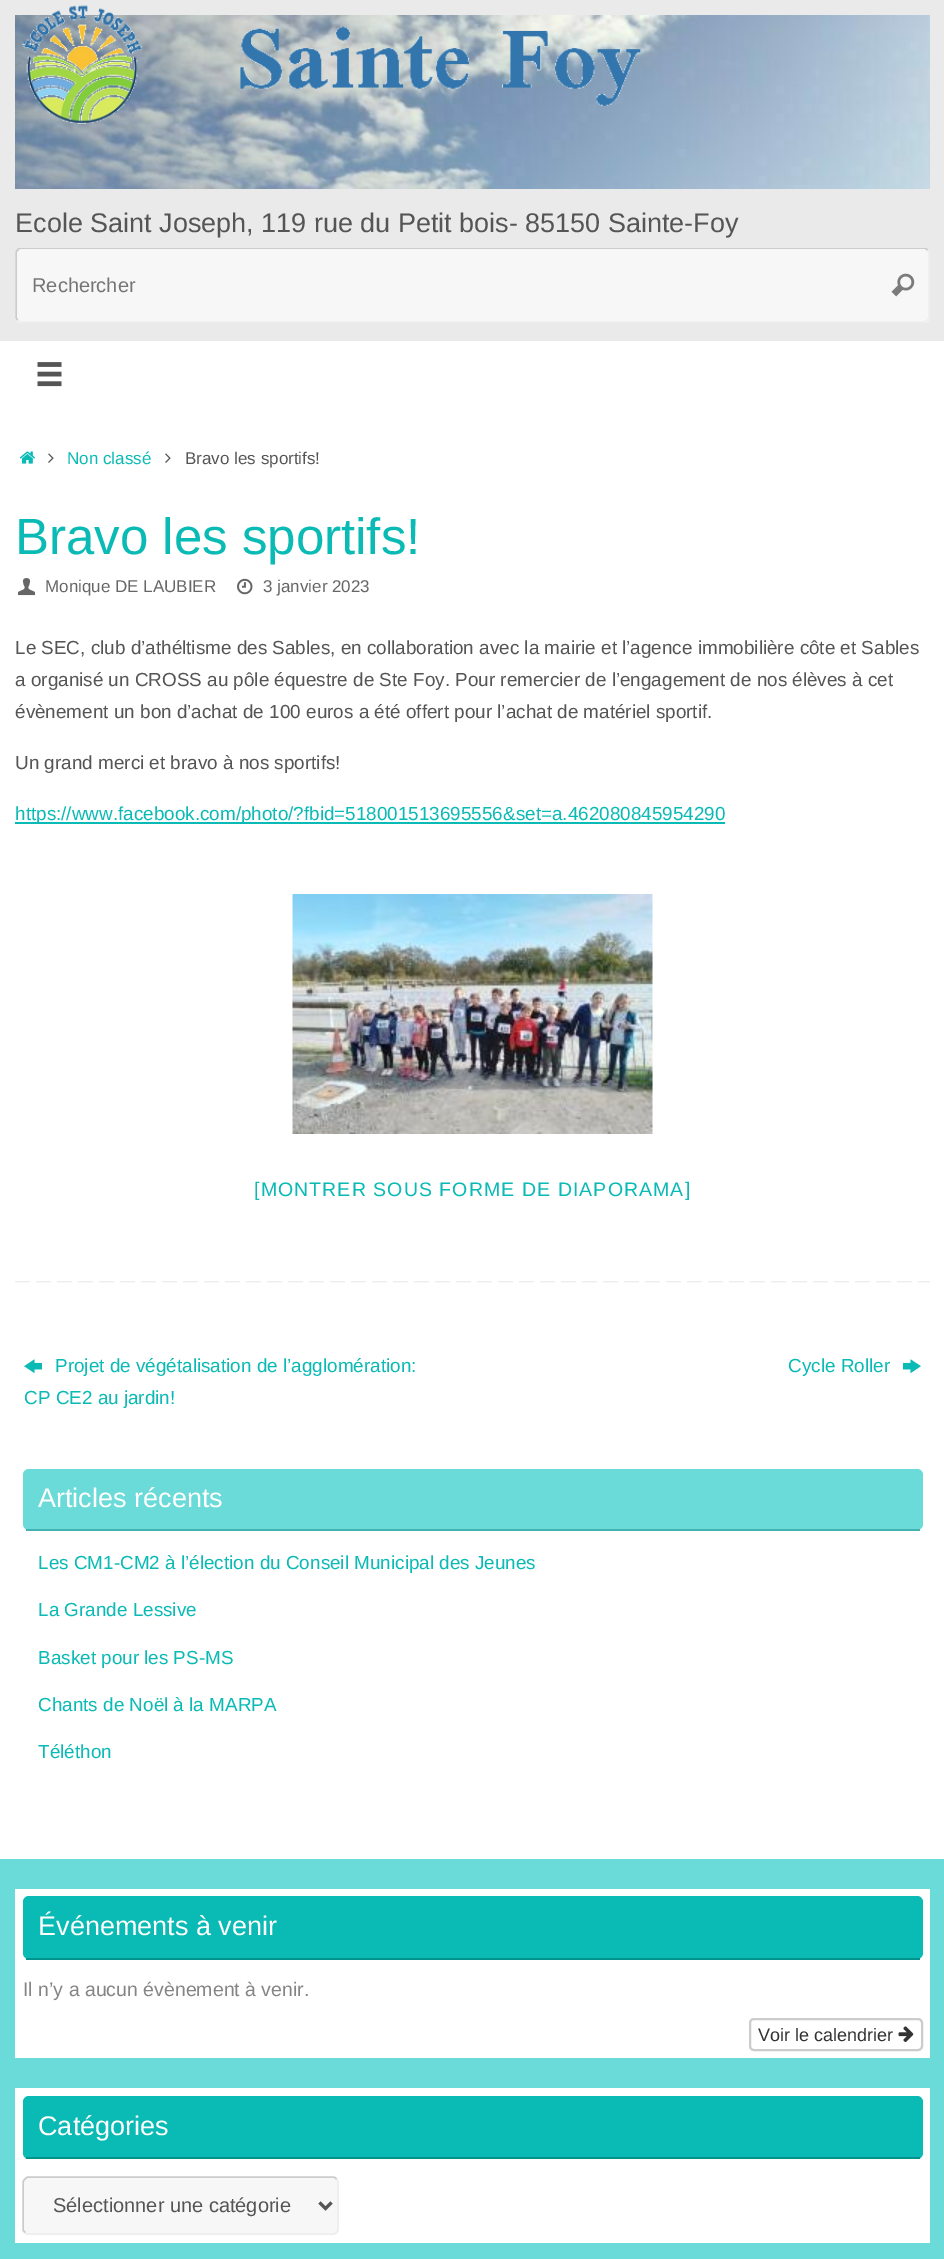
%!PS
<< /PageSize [944 2259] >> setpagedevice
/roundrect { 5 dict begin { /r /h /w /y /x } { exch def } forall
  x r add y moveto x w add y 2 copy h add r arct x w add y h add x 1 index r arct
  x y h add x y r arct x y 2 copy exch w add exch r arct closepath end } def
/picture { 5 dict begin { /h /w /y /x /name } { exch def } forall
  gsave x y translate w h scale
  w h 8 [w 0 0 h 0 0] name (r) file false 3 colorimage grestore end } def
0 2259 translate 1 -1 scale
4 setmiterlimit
0.918 setgray
0 0 944 2259 rectfill
(img2.rgb) 15 15 915 174 picture
(img1.rgb) 22 5 620 119 picture
/LiberationSans-Regular [27 0 0 -27 0 0] selectfont
0.333 setgray
15 232 moveto (Ecole Saint Joseph, 119 rue du Petit bois- 85150 Sainte-Foy) show
0.969 setgray
15 248 915 75 6 roundrect fill
0.933 setgray
1.5 setlinewidth
newpath 927.5 250 moveto 928.5 251 929 252 929 253.5 curveto 929 316.5 lineto 929 318 928.5 319 927.5 320 curveto 926.5 321 925.5 322 924 322 curveto 21 322 lineto 19.5 322 18.5 321 17.5 320 curveto stroke
gsave
15 248 915 75 rectclip
0.8 setgray
newpath 17.5 320 moveto 16.5 319 16 318 16 316.5 curveto 16 253.5 lineto 16 252 16.5 251 17.5 250 curveto 18.5 249 19.5 248 21 248 curveto 924 248 lineto 925.5 248 926.5 249 927.5 250 curveto stroke
grestore
/LiberationSans-Regular [20 0 0 -20 0 0] selectfont
0.459 setgray
32 292 moveto (Rechercher) show
(img3.rgb) 891 273 24 24 picture
1 setgray
0 341 944 1518 rectfill
(img4.rgb) 37 362 25 25 picture
(img5.rgb) 19 451 16 13 picture
(img6.rgb) 48 453 6 10 picture
/LiberationSans-Regular [17 0 0 -17 0 0] selectfont
0.039 0.729 0.71 setrgbcolor
67 464 moveto (Non classé) show
(img6.rgb) 165 453 6 10 picture
0.333 setgray
185 464 moveto (Bravo les sportifs!) show
/LiberationSans-Regular [51 0 0 -51 0 0] selectfont
0.039 0.729 0.71 setrgbcolor
15 554 moveto (Bravo les sportifs!) show
(img7.rgb) 18 578 17 18 picture
/LiberationSans-Regular [17 0 0 -17 0 0] selectfont
0.4 setgray
45 592 moveto (Monique DE LAUBIER) show
(img8.rgb) 237 578 16 17 picture
263 592 moveto (3 janvier 2023) show
/LiberationSans-Regular [18.9 0 0 -18.9 0 0] selectfont
0.333 setgray
15 654 moveto (Le SEC, club d’athéltisme des Sables, en collaboration avec la mairie et l’agence immobilière côte et Sables) show
15 686 moveto (a organisé un CROSS au pôle équestre de Ste Foy. Pour remercier de l’engagement de nos élèves à cet) show
15 718 moveto (évènement un bon d’achat de 100 euros a été offert pour l’achat de matériel sportif.) show
15 769 moveto (Un grand merci et bravo à nos sportifs!) show
0.039 0.729 0.71 setrgbcolor
15 822 710 2 rectfill
15 820 moveto (https://www.facebook.com/photo/?fbid=518001513695556&set=a.462080845954290) show
(img9.rgb) 292 894 361 240 picture
/LiberationSans-Regular [19.5 0 0 -19.5 0 0] selectfont
254 1196 moveto 1.1 0 ([MONTRER SOUS FORME DE DIAPORAMA]) ashow
(img10.rgb) 15 1281 915 2 picture
(img11.rgb) 24 1359 18 15 picture
/LiberationSans-Regular [18.9 0 0 -18.9 0 0] selectfont
55 1372 moveto (Projet de végétalisation de l’agglomération:) show
24 1404 moveto (CP CE2 au jardin!) show
788 1372 moveto (Cycle Roller) show
(img12.rgb) 903 1359 18 15 picture
0.416 0.859 0.847 setrgbcolor
23 1469 900 61 6 roundrect fill
0.259 0.702 0.69 setrgbcolor
26 1529 894 2 rectfill
/LiberationSans-Regular [27 0 0 -27 0 0] selectfont
1 setgray
38 1507 moveto (Articles récents) show
/LiberationSans-Regular [18.9 0 0 -18.9 0 0] selectfont
0.039 0.729 0.71 setrgbcolor
38 1569 moveto (Les CM1-CM2 à l’élection du Conseil Municipal des Jeunes) show
38 1616 moveto (La Grande Lessive) show
38 1664 moveto (Basket pour les PS-MS) show
38 1711 moveto (Chants de Noël à la MARPA) show
38 1758 moveto (Téléthon) show
0.416 0.859 0.847 setrgbcolor
0 1859 944 400 rectfill
1 setgray
15 1889 915 169 rectfill
0.039 0.729 0.71 setrgbcolor
23 1896 900 63 6 roundrect fill
0 0.573 0.553 setrgbcolor
26 1958 894 2 rectfill
/LiberationSans-Regular [27 0 0 -27 0 0] selectfont
1 setgray
38 1935 moveto (Événements à venir) show
/LiberationSans-Regular [19.5 0 0 -19.5 0 0] selectfont
0.522 setgray
23 1996 moveto (Il n’y a aucun évènement à venir.) show
0.8 setgray
2 setlinewidth
750 2019 172 31 4 roundrect stroke
/LiberationSans-Regular [18 0 0 -18 0 0] selectfont
0.2 setgray
758 2041 moveto (Voir le calendrier) show
(img13.rgb) 898 2026 16 16 picture
1 setgray
15 2088 915 155 rectfill
0.039 0.729 0.71 setrgbcolor
23 2096 900 63 6 roundrect fill
0 0.573 0.553 setrgbcolor
26 2157 894 2 rectfill
/LiberationSans-Regular [27 0 0 -27 0 0] selectfont
1 setgray
38 2135 moveto (Catégories) show
0.969 setgray
23 2177 316 58 6 roundrect fill
0.933 setgray
1.5 setlinewidth
newpath 336.5 2179 moveto 337.5 2180 338 2181 338 2182.5 curveto 338 2229 lineto 338 2230.5 337.5 2231.5 336.5 2232.5 curveto 335.5 2233.5 334.5 2234 333 2234 curveto 28.5 2234 lineto 27 2234 26 2233.5 25 2232.5 curveto stroke
0.8 setgray
newpath 25 2232.5 moveto 24 2231.5 23 2230.5 23 2229 curveto 23 2182.5 lineto 23 2181 24 2180 25 2179 curveto 26 2178 27 2177 28.5 2177 curveto 333 2177 lineto 334.5 2177 335.5 2178 336.5 2179 curveto stroke
0.333 setgray
3 setlinewidth
newpath 319.5 2202.5 moveto 325.5 2208.5 lineto 331.5 2202.5 lineto stroke
/LiberationSans-Regular [20 0 0 -20 0 0] selectfont
53 2212 moveto (Sélectionner une catégorie) show
showpage
